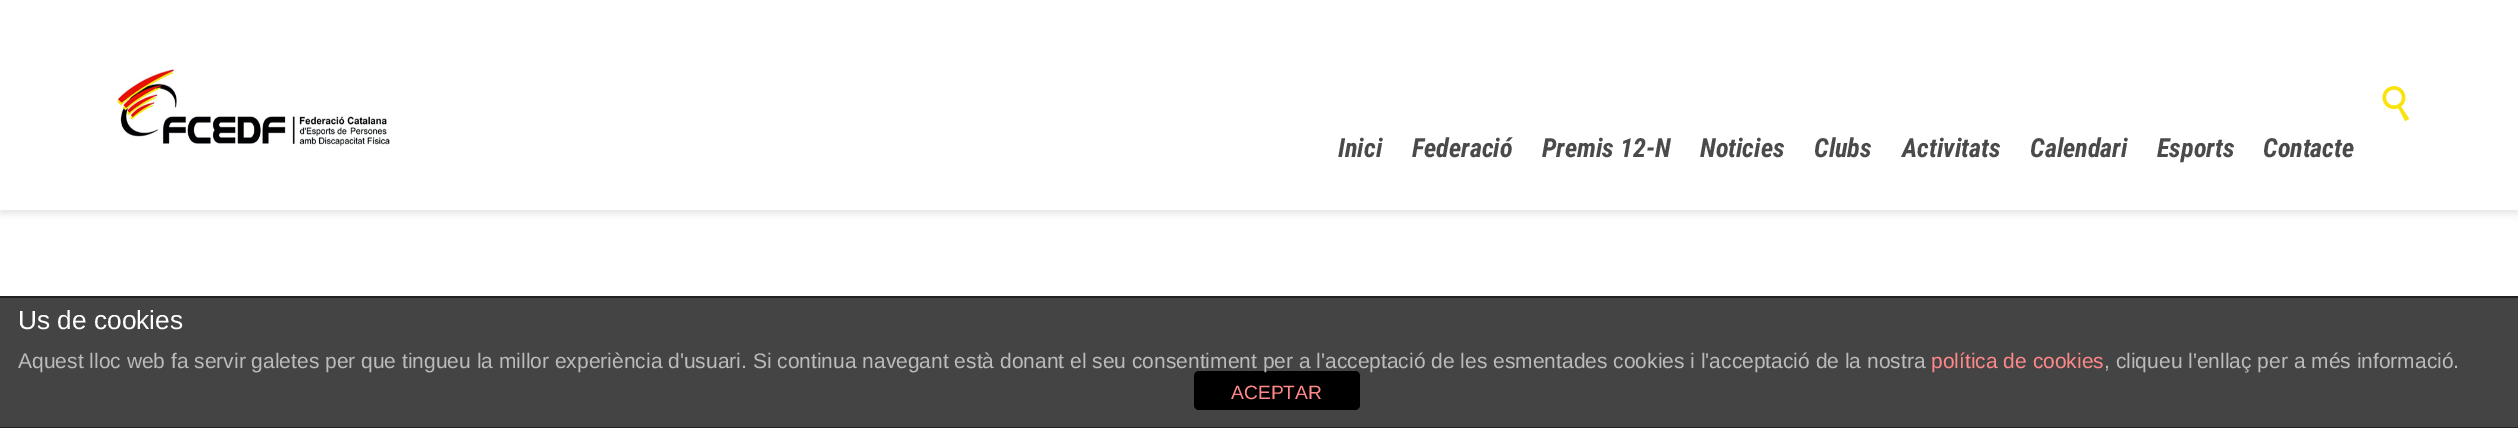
%!PS
<< /PageSize [2518 428] /PageUsesTransparency true >> setpagedevice
/alpha { dup .setfillconstantalpha .setstrokeconstantalpha } def
/roundrect { 5 dict begin { /r /h /w /y /x } { exch def } forall
  x r add y moveto x w add y 2 copy h add r arct x w add y h add x 1 index r arct
  x y h add x y r arct x y 2 copy exch w add exch r arct closepath end } def
/shadow { 12 dict begin { /a /b /q /h /w /y /x } { exch def } forall gsave /was 0 def
  9 -2 -9 { dup b mul 4 div /e exch def 1 sub .425 mul 2.718 exch exp 1 add a .99 .min exch div /now exch def
    1 1 now sub 1 was sub div sub alpha /was now def
    w h .min e 2 mul add 0 gt { x e sub y e sub w e 2 mul add h e 2 mul add
      q e add b .6 mul add w h .min 2 div e add .min 0 .max roundrect fill } if } for grestore end } def
/picture { 5 dict begin { /h /w /y /x /name } { exch def } forall
  gsave x y translate w h scale
  w h 8 [w 0 0 h 0 0] name (r) file false 3 colorimage grestore end } def
0 .pushpdf14devicefilter
0 428 translate 1 -1 scale
4 setmiterlimit
1 setgray
0 0 2518 428 rectfill
0 setgray
0 -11 2518 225 0 3.5 0.09 shadow
1 setgray
0 0 2518 210 rectfill
(img1.rgb) 117 69 273 77 picture
(img2.rgb) 2382 86 28 35 picture
/RobotoCondensed-BoldItalic [26.25 0 0 -26.25 0 0] selectfont
0.29 setgray
1338 157 moveto (Inici) show
1412 157 moveto (Federació) show
1542 157 moveto (Premis 12-N) show
1700 157 moveto (Noticies) show
1814 157 moveto (Clubs) show
1902 157 moveto (Activitats) show
2030 157 moveto (Calendari) show
2157 157 moveto (Esports) show
2263 157 moveto (Contacte) show
0.267 setgray
0 298 2518 129 rectfill
0.133 setgray
0 296 2518 2 rectfill
0 427 2518 1 rectfill
/LiberationSans-Regular [26.25 0 0 -26.25 0 0] selectfont
1 setgray
18 329 moveto (Us de cookies) show
0 setgray
1194 371 166 39 5 roundrect fill
/LiberationSans-Regular [21 0 0 -21 0 0] selectfont
0.733 setgray
18 368 moveto (Aquest lloc web fa servir galetes per que tingueu la millor experiència d'usuari. Si continua navegant està donant el seu consentiment per a l'acceptació de les esmentades cookies i l'acceptació de la nostra) show
1 0.533 0.533 setrgbcolor
1931 368 moveto (política de cookies) show
0.733 setgray
2104 368 moveto (, cliqueu l'enllaç per a més informació.) show
/LiberationSans-Regular [19.25 0 0 -19.25 0 0] selectfont
1 0.533 0.533 setrgbcolor
1231 399 moveto (ACEPTAR) show
.poppdf14devicefilter showpage
